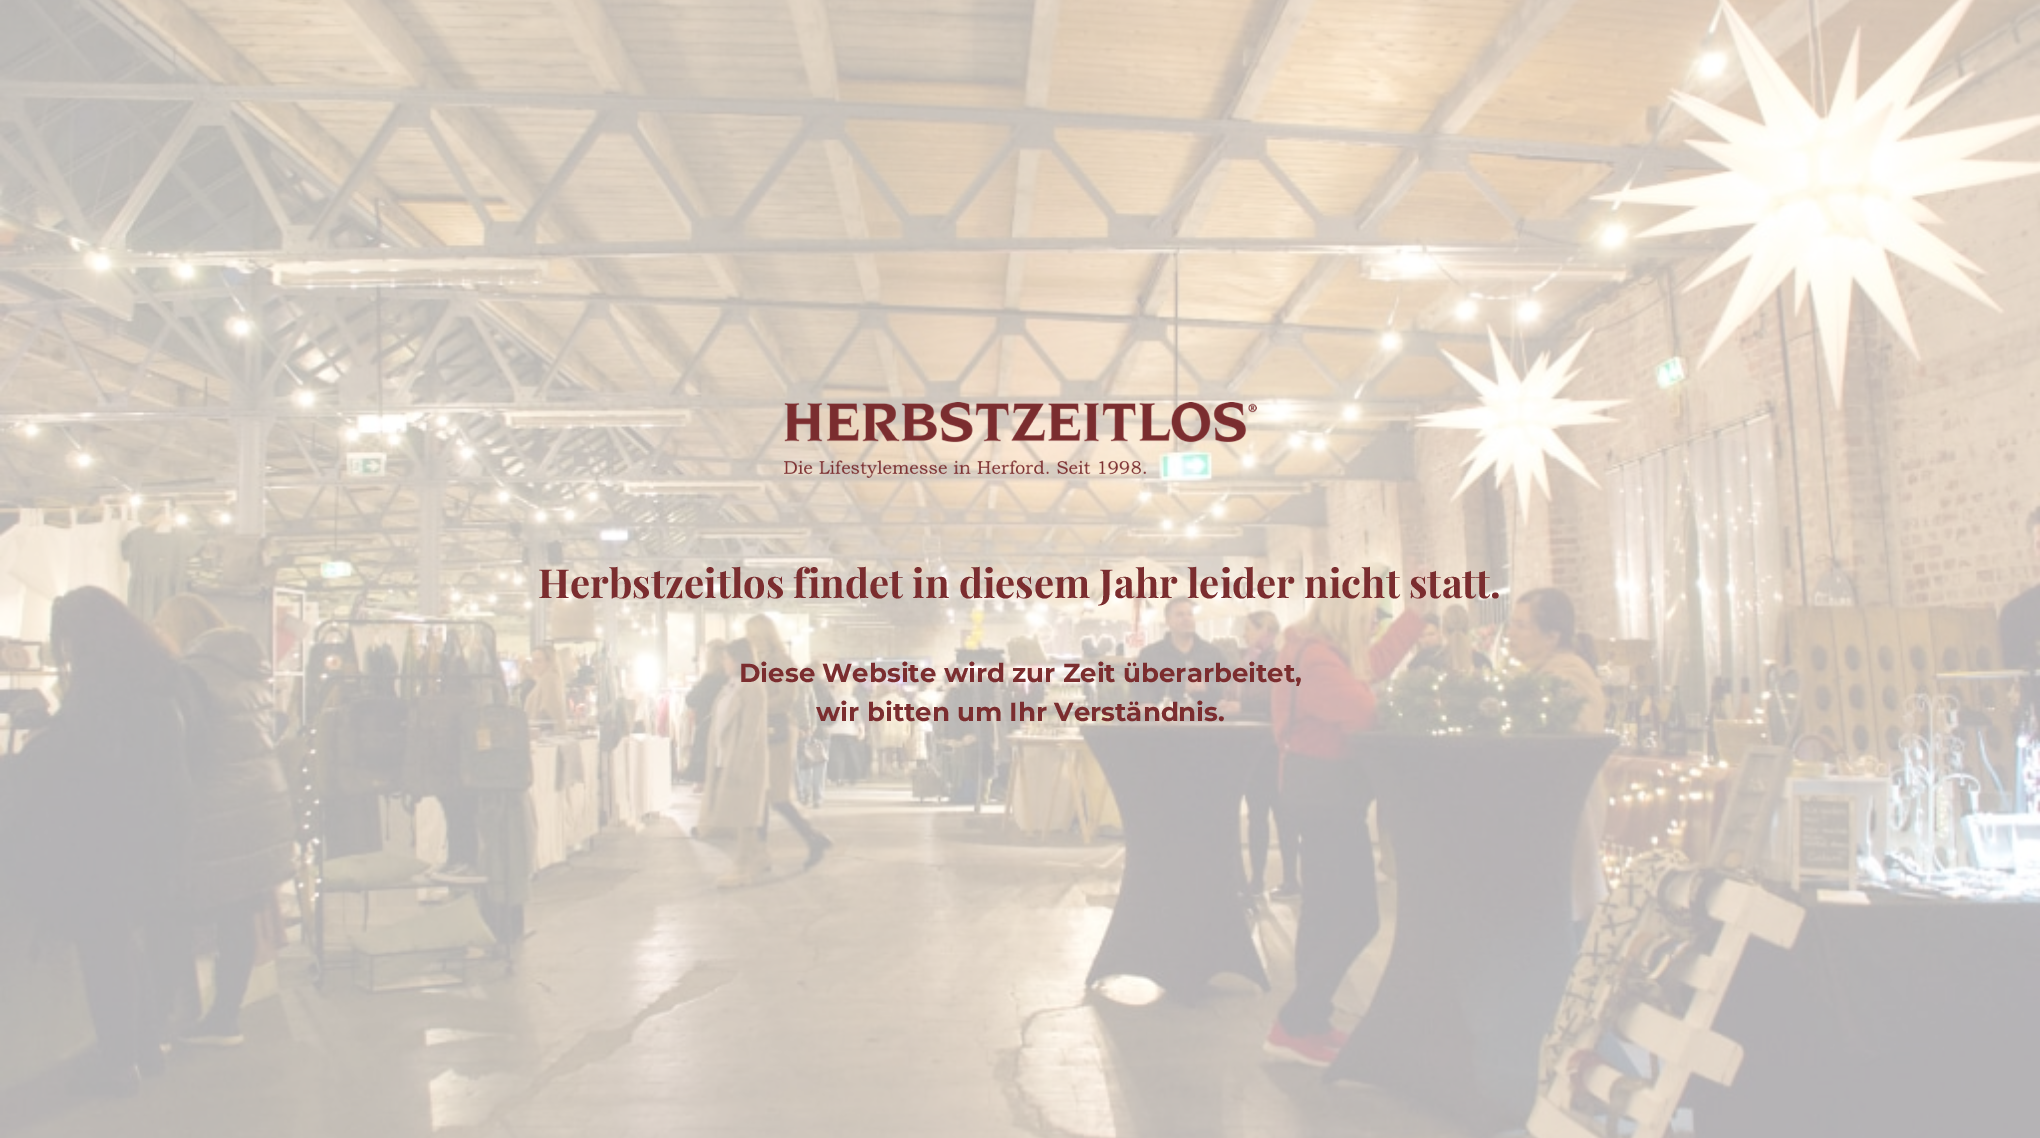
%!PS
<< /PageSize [2040 1138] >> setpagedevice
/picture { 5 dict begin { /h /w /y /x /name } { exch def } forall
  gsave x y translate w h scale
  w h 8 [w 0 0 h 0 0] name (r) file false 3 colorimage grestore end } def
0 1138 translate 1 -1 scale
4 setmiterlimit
1 setgray
0 0 2040 1138 rectfill
(img1.rgb) 0 0 2040 1138 picture
(img2.rgb) 784 402 473 76 picture
/PlayfairDisplay-Bold [40 0 0 -40 0 0] selectfont
0.482 0.176 0.184 setrgbcolor
538 598 moveto (Herbstzeitlos findet in diesem Jahr leider nicht statt.) show
/Montserrat-Bold [26 0 0 -26 0 0] selectfont
739 682 moveto (Diese Website wird zur Zeit überarbeitet,) show
816 721 moveto (wir bitten um Ihr Verständnis.) show
showpage
